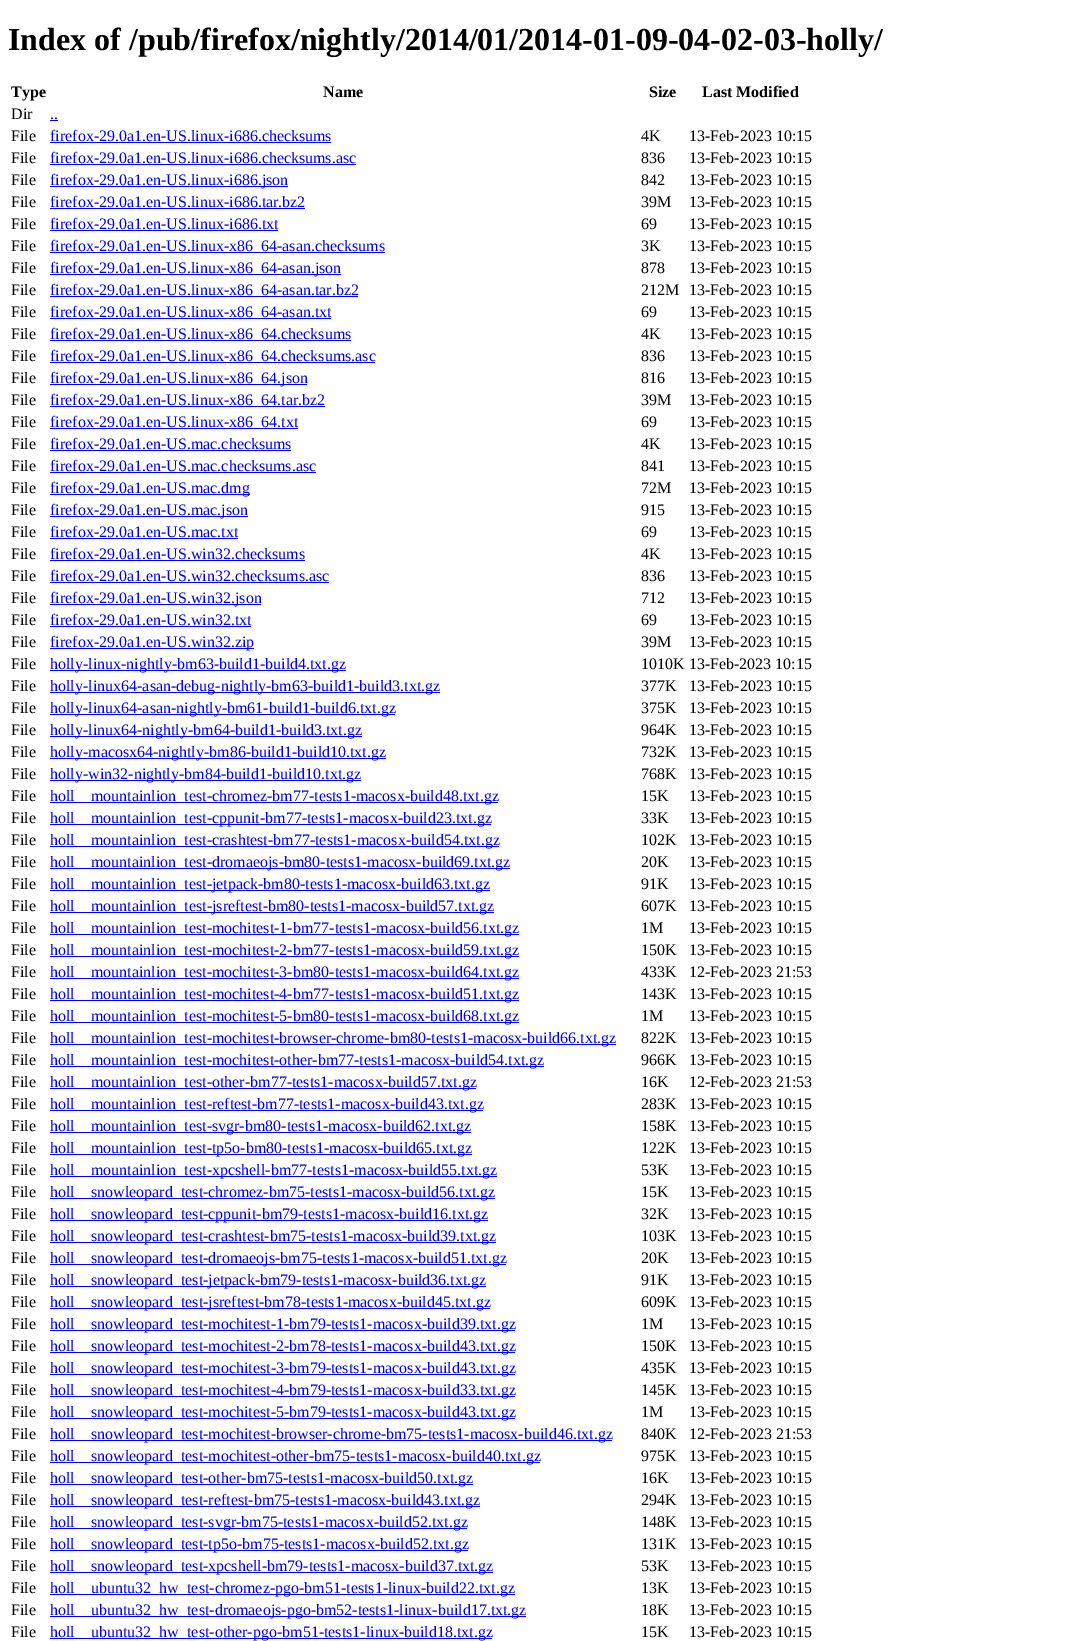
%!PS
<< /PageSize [1081 1641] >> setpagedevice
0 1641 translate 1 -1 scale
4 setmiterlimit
1 setgray
0 0 1081 1641 rectfill
/LiberationSerif-Bold [32 0 0 -32 0 0] selectfont
0 setgray
8 50 moveto (Index of /pub/firefox/nightly/2014/01/2014-01-09-04-02-03-holly/) show
/LiberationSerif-Bold [16 0 0 -16 0 0] selectfont
11 97 moveto (Type) show
323 97 moveto (Name) show
649 97 moveto (Size) show
702 97 moveto (Last Modified) show
/LiberationSerif-Regular [16 0 0 -16 0 0] selectfont
11 119 moveto (Dir) show
0 0 0.933 setrgbcolor
50 119 moveto (..) show
50 120 8 1 rectfill
0 setgray
11 141 moveto (File) show
0 0 0.933 setrgbcolor
50 141 moveto (firefox-29.0a1.en-US.linux-i686.checksums) show
50 142 281 1 rectfill
0 setgray
641 141 moveto (4K) show
689 141 moveto (13-Feb-2023 10:15) show
11 163 moveto (File) show
0 0 0.933 setrgbcolor
50 163 moveto (firefox-29.0a1.en-US.linux-i686.checksums.asc) show
50 164 306 1 rectfill
0 setgray
641 163 moveto (836) show
689 163 moveto (13-Feb-2023 10:15) show
11 185 moveto (File) show
0 0 0.933 setrgbcolor
50 186 238 1 rectfill
50 185 moveto (firefox-29.0a1.en-US.linux-i686.json) show
0 setgray
641 185 moveto (842) show
689 185 moveto (13-Feb-2023 10:15) show
11 207 moveto (File) show
0 0 0.933 setrgbcolor
50 207 moveto (firefox-29.0a1.en-US.linux-i686.tar.bz2) show
50 208 255 1 rectfill
0 setgray
641 207 moveto (39M) show
689 207 moveto (13-Feb-2023 10:15) show
11 229 moveto (File) show
0 0 0.933 setrgbcolor
50 229 moveto (firefox-29.0a1.en-US.linux-i686.txt) show
50 230 228 1 rectfill
0 setgray
641 229 moveto (69) show
689 229 moveto (13-Feb-2023 10:15) show
11 251 moveto (File) show
0 0 0.933 setrgbcolor
50 252 335 1 rectfill
50 251 moveto (firefox-29.0a1.en-US.linux-x86_64-asan.checksums) show
0 setgray
641 251 moveto (3K) show
689 251 moveto (13-Feb-2023 10:15) show
11 273 moveto (File) show
0 0 0.933 setrgbcolor
50 274 291 1 rectfill
50 273 moveto (firefox-29.0a1.en-US.linux-x86_64-asan.json) show
0 setgray
641 273 moveto (878) show
689 273 moveto (13-Feb-2023 10:15) show
11 295 moveto (File) show
0 0 0.933 setrgbcolor
50 296 308 1 rectfill
50 295 moveto (firefox-29.0a1.en-US.linux-x86_64-asan.tar.bz2) show
0 setgray
641 295 moveto (212M) show
689 295 moveto (13-Feb-2023 10:15) show
11 317 moveto (File) show
0 0 0.933 setrgbcolor
50 318 281 1 rectfill
50 317 moveto (firefox-29.0a1.en-US.linux-x86_64-asan.txt) show
0 setgray
641 317 moveto (69) show
689 317 moveto (13-Feb-2023 10:15) show
11 339 moveto (File) show
0 0 0.933 setrgbcolor
50 340 301 1 rectfill
50 339 moveto (firefox-29.0a1.en-US.linux-x86_64.checksums) show
0 setgray
641 339 moveto (4K) show
689 339 moveto (13-Feb-2023 10:15) show
11 361 moveto (File) show
0 0 0.933 setrgbcolor
50 362 325 1 rectfill
50 361 moveto (firefox-29.0a1.en-US.linux-x86_64.checksums.asc) show
0 setgray
641 361 moveto (836) show
689 361 moveto (13-Feb-2023 10:15) show
11 383 moveto (File) show
0 0 0.933 setrgbcolor
50 384 257 1 rectfill
50 383 moveto (firefox-29.0a1.en-US.linux-x86_64.json) show
0 setgray
641 383 moveto (816) show
689 383 moveto (13-Feb-2023 10:15) show
11 405 moveto (File) show
0 0 0.933 setrgbcolor
50 406 275 1 rectfill
50 405 moveto (firefox-29.0a1.en-US.linux-x86_64.tar.bz2) show
0 setgray
641 405 moveto (39M) show
689 405 moveto (13-Feb-2023 10:15) show
11 427 moveto (File) show
0 0 0.933 setrgbcolor
50 428 248 1 rectfill
50 427 moveto (firefox-29.0a1.en-US.linux-x86_64.txt) show
0 setgray
641 427 moveto (69) show
689 427 moveto (13-Feb-2023 10:15) show
11 449 moveto (File) show
0 0 0.933 setrgbcolor
50 449 moveto (firefox-29.0a1.en-US.mac.checksums) show
50 450 241 1 rectfill
0 setgray
641 449 moveto (4K) show
689 449 moveto (13-Feb-2023 10:15) show
11 471 moveto (File) show
0 0 0.933 setrgbcolor
50 471 moveto (firefox-29.0a1.en-US.mac.checksums.asc) show
50 472 266 1 rectfill
0 setgray
641 471 moveto (841) show
689 471 moveto (13-Feb-2023 10:15) show
11 493 moveto (File) show
0 0 0.933 setrgbcolor
50 494 200 1 rectfill
50 493 moveto (firefox-29.0a1.en-US.mac.dmg) show
0 setgray
641 493 moveto (72M) show
689 493 moveto (13-Feb-2023 10:15) show
11 515 moveto (File) show
0 0 0.933 setrgbcolor
50 516 198 1 rectfill
50 515 moveto (firefox-29.0a1.en-US.mac.json) show
0 setgray
641 515 moveto (915) show
689 515 moveto (13-Feb-2023 10:15) show
11 537 moveto (File) show
0 0 0.933 setrgbcolor
50 537 moveto (firefox-29.0a1.en-US.mac.txt) show
50 538 188 1 rectfill
0 setgray
641 537 moveto (69) show
689 537 moveto (13-Feb-2023 10:15) show
11 559 moveto (File) show
0 0 0.933 setrgbcolor
50 559 moveto (firefox-29.0a1.en-US.win32.checksums) show
50 560 255 1 rectfill
0 setgray
641 559 moveto (4K) show
689 559 moveto (13-Feb-2023 10:15) show
11 581 moveto (File) show
0 0 0.933 setrgbcolor
50 581 moveto (firefox-29.0a1.en-US.win32.checksums.asc) show
50 582 279 1 rectfill
0 setgray
641 581 moveto (836) show
689 581 moveto (13-Feb-2023 10:15) show
11 603 moveto (File) show
0 0 0.933 setrgbcolor
50 604 211 1 rectfill
50 603 moveto (firefox-29.0a1.en-US.win32.json) show
0 setgray
641 603 moveto (712) show
689 603 moveto (13-Feb-2023 10:15) show
11 625 moveto (File) show
0 0 0.933 setrgbcolor
50 625 moveto (firefox-29.0a1.en-US.win32.txt) show
50 626 201 1 rectfill
0 setgray
641 625 moveto (69) show
689 625 moveto (13-Feb-2023 10:15) show
11 647 moveto (File) show
0 0 0.933 setrgbcolor
50 648 204 1 rectfill
50 647 moveto (firefox-29.0a1.en-US.win32.zip) show
0 setgray
641 647 moveto (39M) show
689 647 moveto (13-Feb-2023 10:15) show
11 669 moveto (File) show
0 0 0.933 setrgbcolor
50 670 296 1 rectfill
50 669 moveto (holly-linux-nightly-bm63-build1-build4.txt.gz) show
0 setgray
641 669 moveto (1010K 13-Feb-2023 10:15) show
11 691 moveto (File) show
0 0 0.933 setrgbcolor
50 692 390 1 rectfill
50 691 moveto (holly-linux64-asan-debug-nightly-bm63-build1-build3.txt.gz) show
0 setgray
641 691 moveto (377K) show
689 691 moveto (13-Feb-2023 10:15) show
11 713 moveto (File) show
0 0 0.933 setrgbcolor
50 714 345 1 rectfill
50 713 moveto (holly-linux64-asan-nightly-bm61-build1-build6.txt.gz) show
0 setgray
641 713 moveto (375K) show
689 713 moveto (13-Feb-2023 10:15) show
11 735 moveto (File) show
0 0 0.933 setrgbcolor
50 736 312 1 rectfill
50 735 moveto (holly-linux64-nightly-bm64-build1-build3.txt.gz) show
0 setgray
641 735 moveto (964K) show
689 735 moveto (13-Feb-2023 10:15) show
11 757 moveto (File) show
0 0 0.933 setrgbcolor
50 758 336 1 rectfill
50 757 moveto (holly-macosx64-nightly-bm86-build1-build10.txt.gz) show
0 setgray
641 757 moveto (732K) show
689 757 moveto (13-Feb-2023 10:15) show
11 779 moveto (File) show
0 0 0.933 setrgbcolor
50 780 311 1 rectfill
50 779 moveto (holly-win32-nightly-bm84-build1-build10.txt.gz) show
0 setgray
641 779 moveto (768K) show
689 779 moveto (13-Feb-2023 10:15) show
11 801 moveto (File) show
0 0 0.933 setrgbcolor
50 801 moveto (holl) show
50 802 448 1 rectfill
91 801 moveto (mountainlion_test-chromez-bm77-tests1-macosx-build48.txt.gz) show
0 setgray
641 801 moveto (15K) show
689 801 moveto (13-Feb-2023 10:15) show
11 823 moveto (File) show
0 0 0.933 setrgbcolor
50 823 moveto (holl) show
50 824 441 1 rectfill
91 823 moveto (mountainlion_test-cppunit-bm77-tests1-macosx-build23.txt.gz) show
0 setgray
641 823 moveto (33K) show
689 823 moveto (13-Feb-2023 10:15) show
11 845 moveto (File) show
0 0 0.933 setrgbcolor
50 845 moveto (holl) show
50 846 449 1 rectfill
91 845 moveto (mountainlion_test-crashtest-bm77-tests1-macosx-build54.txt.gz) show
0 setgray
641 845 moveto (102K) show
689 845 moveto (13-Feb-2023 10:15) show
11 867 moveto (File) show
0 0 0.933 setrgbcolor
50 867 moveto (holl) show
50 868 460 1 rectfill
91 867 moveto (mountainlion_test-dromaeojs-bm80-tests1-macosx-build69.txt.gz) show
0 setgray
641 867 moveto (20K) show
689 867 moveto (13-Feb-2023 10:15) show
11 889 moveto (File) show
0 0 0.933 setrgbcolor
50 889 moveto (holl) show
50 890 440 1 rectfill
91 889 moveto (mountainlion_test-jetpack-bm80-tests1-macosx-build63.txt.gz) show
0 setgray
641 889 moveto (91K) show
689 889 moveto (13-Feb-2023 10:15) show
11 911 moveto (File) show
0 0 0.933 setrgbcolor
50 911 moveto (holl) show
50 912 444 1 rectfill
91 911 moveto (mountainlion_test-jsreftest-bm80-tests1-macosx-build57.txt.gz) show
0 setgray
641 911 moveto (607K) show
689 911 moveto (13-Feb-2023 10:15) show
11 933 moveto (File) show
0 0 0.933 setrgbcolor
50 933 moveto (holl) show
50 934 469 1 rectfill
91 933 moveto (mountainlion_test-mochitest-1-bm77-tests1-macosx-build56.txt.gz) show
0 setgray
641 933 moveto (1M) show
689 933 moveto (13-Feb-2023 10:15) show
11 955 moveto (File) show
0 0 0.933 setrgbcolor
50 955 moveto (holl) show
50 956 469 1 rectfill
91 955 moveto (mountainlion_test-mochitest-2-bm77-tests1-macosx-build59.txt.gz) show
0 setgray
641 955 moveto (150K) show
689 955 moveto (13-Feb-2023 10:15) show
11 977 moveto (File) show
0 0 0.933 setrgbcolor
50 977 moveto (holl) show
50 978 469 1 rectfill
91 977 moveto (mountainlion_test-mochitest-3-bm80-tests1-macosx-build64.txt.gz) show
0 setgray
641 977 moveto (433K) show
689 977 moveto (12-Feb-2023 21:53) show
11 999 moveto (File) show
0 0 0.933 setrgbcolor
50 999 moveto (holl) show
50 1000 469 1 rectfill
91 999 moveto (mountainlion_test-mochitest-4-bm77-tests1-macosx-build51.txt.gz) show
0 setgray
641 999 moveto (143K) show
689 999 moveto (13-Feb-2023 10:15) show
11 1021 moveto (File) show
0 0 0.933 setrgbcolor
50 1021 moveto (holl) show
50 1022 469 1 rectfill
91 1021 moveto (mountainlion_test-mochitest-5-bm80-tests1-macosx-build68.txt.gz) show
0 setgray
641 1021 moveto (1M) show
689 1021 moveto (13-Feb-2023 10:15) show
11 1043 moveto (File) show
0 0 0.933 setrgbcolor
50 1043 moveto (holl) show
50 1044 566 1 rectfill
91 1043 moveto (mountainlion_test-mochitest-browser-chrome-bm80-tests1-macosx-build66.txt.gz) show
0 setgray
641 1043 moveto (822K) show
689 1043 moveto (13-Feb-2023 10:15) show
11 1065 moveto (File) show
0 0 0.933 setrgbcolor
50 1065 moveto (holl) show
50 1066 494 1 rectfill
91 1065 moveto (mountainlion_test-mochitest-other-bm77-tests1-macosx-build54.txt.gz) show
0 setgray
641 1065 moveto (966K) show
689 1065 moveto (13-Feb-2023 10:15) show
11 1087 moveto (File) show
0 0 0.933 setrgbcolor
50 1087 moveto (holl) show
50 1088 426 1 rectfill
91 1087 moveto (mountainlion_test-other-bm77-tests1-macosx-build57.txt.gz) show
0 setgray
641 1087 moveto (16K) show
689 1087 moveto (12-Feb-2023 21:53) show
11 1109 moveto (File) show
0 0 0.933 setrgbcolor
50 1109 moveto (holl) show
50 1110 433 1 rectfill
91 1109 moveto (mountainlion_test-reftest-bm77-tests1-macosx-build43.txt.gz) show
0 setgray
641 1109 moveto (283K) show
689 1109 moveto (13-Feb-2023 10:15) show
11 1131 moveto (File) show
0 0 0.933 setrgbcolor
50 1131 moveto (holl) show
50 1132 421 1 rectfill
91 1131 moveto (mountainlion_test-svgr-bm80-tests1-macosx-build62.txt.gz) show
0 setgray
641 1131 moveto (158K) show
689 1131 moveto (13-Feb-2023 10:15) show
11 1153 moveto (File) show
0 0 0.933 setrgbcolor
50 1153 moveto (holl) show
50 1154 422 1 rectfill
91 1153 moveto (mountainlion_test-tp5o-bm80-tests1-macosx-build65.txt.gz) show
0 setgray
641 1153 moveto (122K) show
689 1153 moveto (13-Feb-2023 10:15) show
11 1175 moveto (File) show
0 0 0.933 setrgbcolor
50 1175 moveto (holl) show
50 1176 447 1 rectfill
91 1175 moveto (mountainlion_test-xpcshell-bm77-tests1-macosx-build55.txt.gz) show
0 setgray
641 1175 moveto (53K) show
689 1175 moveto (13-Feb-2023 10:15) show
11 1197 moveto (File) show
0 0 0.933 setrgbcolor
50 1197 moveto (holl) show
50 1198 445 1 rectfill
91 1197 moveto (snowleopard_test-chromez-bm75-tests1-macosx-build56.txt.gz) show
0 setgray
641 1197 moveto (15K) show
689 1197 moveto (13-Feb-2023 10:15) show
11 1219 moveto (File) show
0 0 0.933 setrgbcolor
50 1219 moveto (holl) show
50 1220 438 1 rectfill
91 1219 moveto (snowleopard_test-cppunit-bm79-tests1-macosx-build16.txt.gz) show
0 setgray
641 1219 moveto (32K) show
689 1219 moveto (13-Feb-2023 10:15) show
11 1241 moveto (File) show
0 0 0.933 setrgbcolor
50 1241 moveto (holl) show
50 1242 446 1 rectfill
91 1241 moveto (snowleopard_test-crashtest-bm75-tests1-macosx-build39.txt.gz) show
0 setgray
641 1241 moveto (103K) show
689 1241 moveto (13-Feb-2023 10:15) show
11 1263 moveto (File) show
0 0 0.933 setrgbcolor
50 1263 moveto (holl) show
50 1264 456 1 rectfill
91 1263 moveto (snowleopard_test-dromaeojs-bm75-tests1-macosx-build51.txt.gz) show
0 setgray
641 1263 moveto (20K) show
689 1263 moveto (13-Feb-2023 10:15) show
11 1285 moveto (File) show
0 0 0.933 setrgbcolor
50 1285 moveto (holl) show
50 1286 436 1 rectfill
91 1285 moveto (snowleopard_test-jetpack-bm79-tests1-macosx-build36.txt.gz) show
0 setgray
641 1285 moveto (91K) show
689 1285 moveto (13-Feb-2023 10:15) show
11 1307 moveto (File) show
0 0 0.933 setrgbcolor
50 1307 moveto (holl) show
50 1308 440 1 rectfill
91 1307 moveto (snowleopard_test-jsreftest-bm78-tests1-macosx-build45.txt.gz) show
0 setgray
641 1307 moveto (609K) show
689 1307 moveto (13-Feb-2023 10:15) show
11 1329 moveto (File) show
0 0 0.933 setrgbcolor
50 1329 moveto (holl) show
50 1330 465 1 rectfill
91 1329 moveto (snowleopard_test-mochitest-1-bm79-tests1-macosx-build39.txt.gz) show
0 setgray
641 1329 moveto (1M) show
689 1329 moveto (13-Feb-2023 10:15) show
11 1351 moveto (File) show
0 0 0.933 setrgbcolor
50 1351 moveto (holl) show
50 1352 465 1 rectfill
91 1351 moveto (snowleopard_test-mochitest-2-bm78-tests1-macosx-build43.txt.gz) show
0 setgray
641 1351 moveto (150K) show
689 1351 moveto (13-Feb-2023 10:15) show
11 1373 moveto (File) show
0 0 0.933 setrgbcolor
50 1373 moveto (holl) show
50 1374 465 1 rectfill
91 1373 moveto (snowleopard_test-mochitest-3-bm79-tests1-macosx-build43.txt.gz) show
0 setgray
641 1373 moveto (435K) show
689 1373 moveto (13-Feb-2023 10:15) show
11 1395 moveto (File) show
0 0 0.933 setrgbcolor
50 1395 moveto (holl) show
50 1396 465 1 rectfill
91 1395 moveto (snowleopard_test-mochitest-4-bm79-tests1-macosx-build33.txt.gz) show
0 setgray
641 1395 moveto (145K) show
689 1395 moveto (13-Feb-2023 10:15) show
11 1417 moveto (File) show
0 0 0.933 setrgbcolor
50 1417 moveto (holl) show
50 1418 465 1 rectfill
91 1417 moveto (snowleopard_test-mochitest-5-bm79-tests1-macosx-build43.txt.gz) show
0 setgray
641 1417 moveto (1M) show
689 1417 moveto (13-Feb-2023 10:15) show
11 1439 moveto (File) show
0 0 0.933 setrgbcolor
50 1439 moveto (holl) show
50 1440 562 1 rectfill
91 1439 moveto (snowleopard_test-mochitest-browser-chrome-bm75-tests1-macosx-build46.txt.gz) show
0 setgray
641 1439 moveto (840K) show
689 1439 moveto (12-Feb-2023 21:53) show
11 1461 moveto (File) show
0 0 0.933 setrgbcolor
50 1461 moveto (holl) show
50 1462 490 1 rectfill
91 1461 moveto (snowleopard_test-mochitest-other-bm75-tests1-macosx-build40.txt.gz) show
0 setgray
641 1461 moveto (975K) show
689 1461 moveto (13-Feb-2023 10:15) show
11 1483 moveto (File) show
0 0 0.933 setrgbcolor
50 1483 moveto (holl) show
50 1484 423 1 rectfill
91 1483 moveto (snowleopard_test-other-bm75-tests1-macosx-build50.txt.gz) show
0 setgray
641 1483 moveto (16K) show
689 1483 moveto (13-Feb-2023 10:15) show
11 1505 moveto (File) show
0 0 0.933 setrgbcolor
50 1505 moveto (holl) show
50 1506 430 1 rectfill
91 1505 moveto (snowleopard_test-reftest-bm75-tests1-macosx-build43.txt.gz) show
0 setgray
641 1505 moveto (294K) show
689 1505 moveto (13-Feb-2023 10:15) show
11 1527 moveto (File) show
0 0 0.933 setrgbcolor
50 1527 moveto (holl) show
50 1528 417 1 rectfill
91 1527 moveto (snowleopard_test-svgr-bm75-tests1-macosx-build52.txt.gz) show
0 setgray
641 1527 moveto (148K) show
689 1527 moveto (13-Feb-2023 10:15) show
11 1549 moveto (File) show
0 0 0.933 setrgbcolor
50 1549 moveto (holl) show
50 1550 418 1 rectfill
91 1549 moveto (snowleopard_test-tp5o-bm75-tests1-macosx-build52.txt.gz) show
0 setgray
641 1549 moveto (131K) show
689 1549 moveto (13-Feb-2023 10:15) show
11 1571 moveto (File) show
0 0 0.933 setrgbcolor
50 1571 moveto (holl) show
50 1572 443 1 rectfill
91 1571 moveto (snowleopard_test-xpcshell-bm79-tests1-macosx-build37.txt.gz) show
0 setgray
641 1571 moveto (53K) show
689 1571 moveto (13-Feb-2023 10:15) show
11 1593 moveto (File) show
0 0 0.933 setrgbcolor
50 1593 moveto (holl) show
50 1594 465 1 rectfill
91 1593 moveto (ubuntu32_hw_test-chromez-pgo-bm51-tests1-linux-build22.txt.gz) show
0 setgray
641 1593 moveto (13K) show
689 1593 moveto (13-Feb-2023 10:15) show
11 1615 moveto (File) show
0 0 0.933 setrgbcolor
50 1615 moveto (holl) show
50 1616 476 1 rectfill
91 1615 moveto (ubuntu32_hw_test-dromaeojs-pgo-bm52-tests1-linux-build17.txt.gz) show
0 setgray
641 1615 moveto (18K) show
689 1615 moveto (13-Feb-2023 10:15) show
11 1637 moveto (File) show
0 0 0.933 setrgbcolor
50 1637 moveto (holl) show
50 1638 442 1 rectfill
91 1637 moveto (ubuntu32_hw_test-other-pgo-bm51-tests1-linux-build18.txt.gz) show
0 setgray
641 1637 moveto (15K) show
689 1637 moveto (13-Feb-2023 10:15) show
showpage
